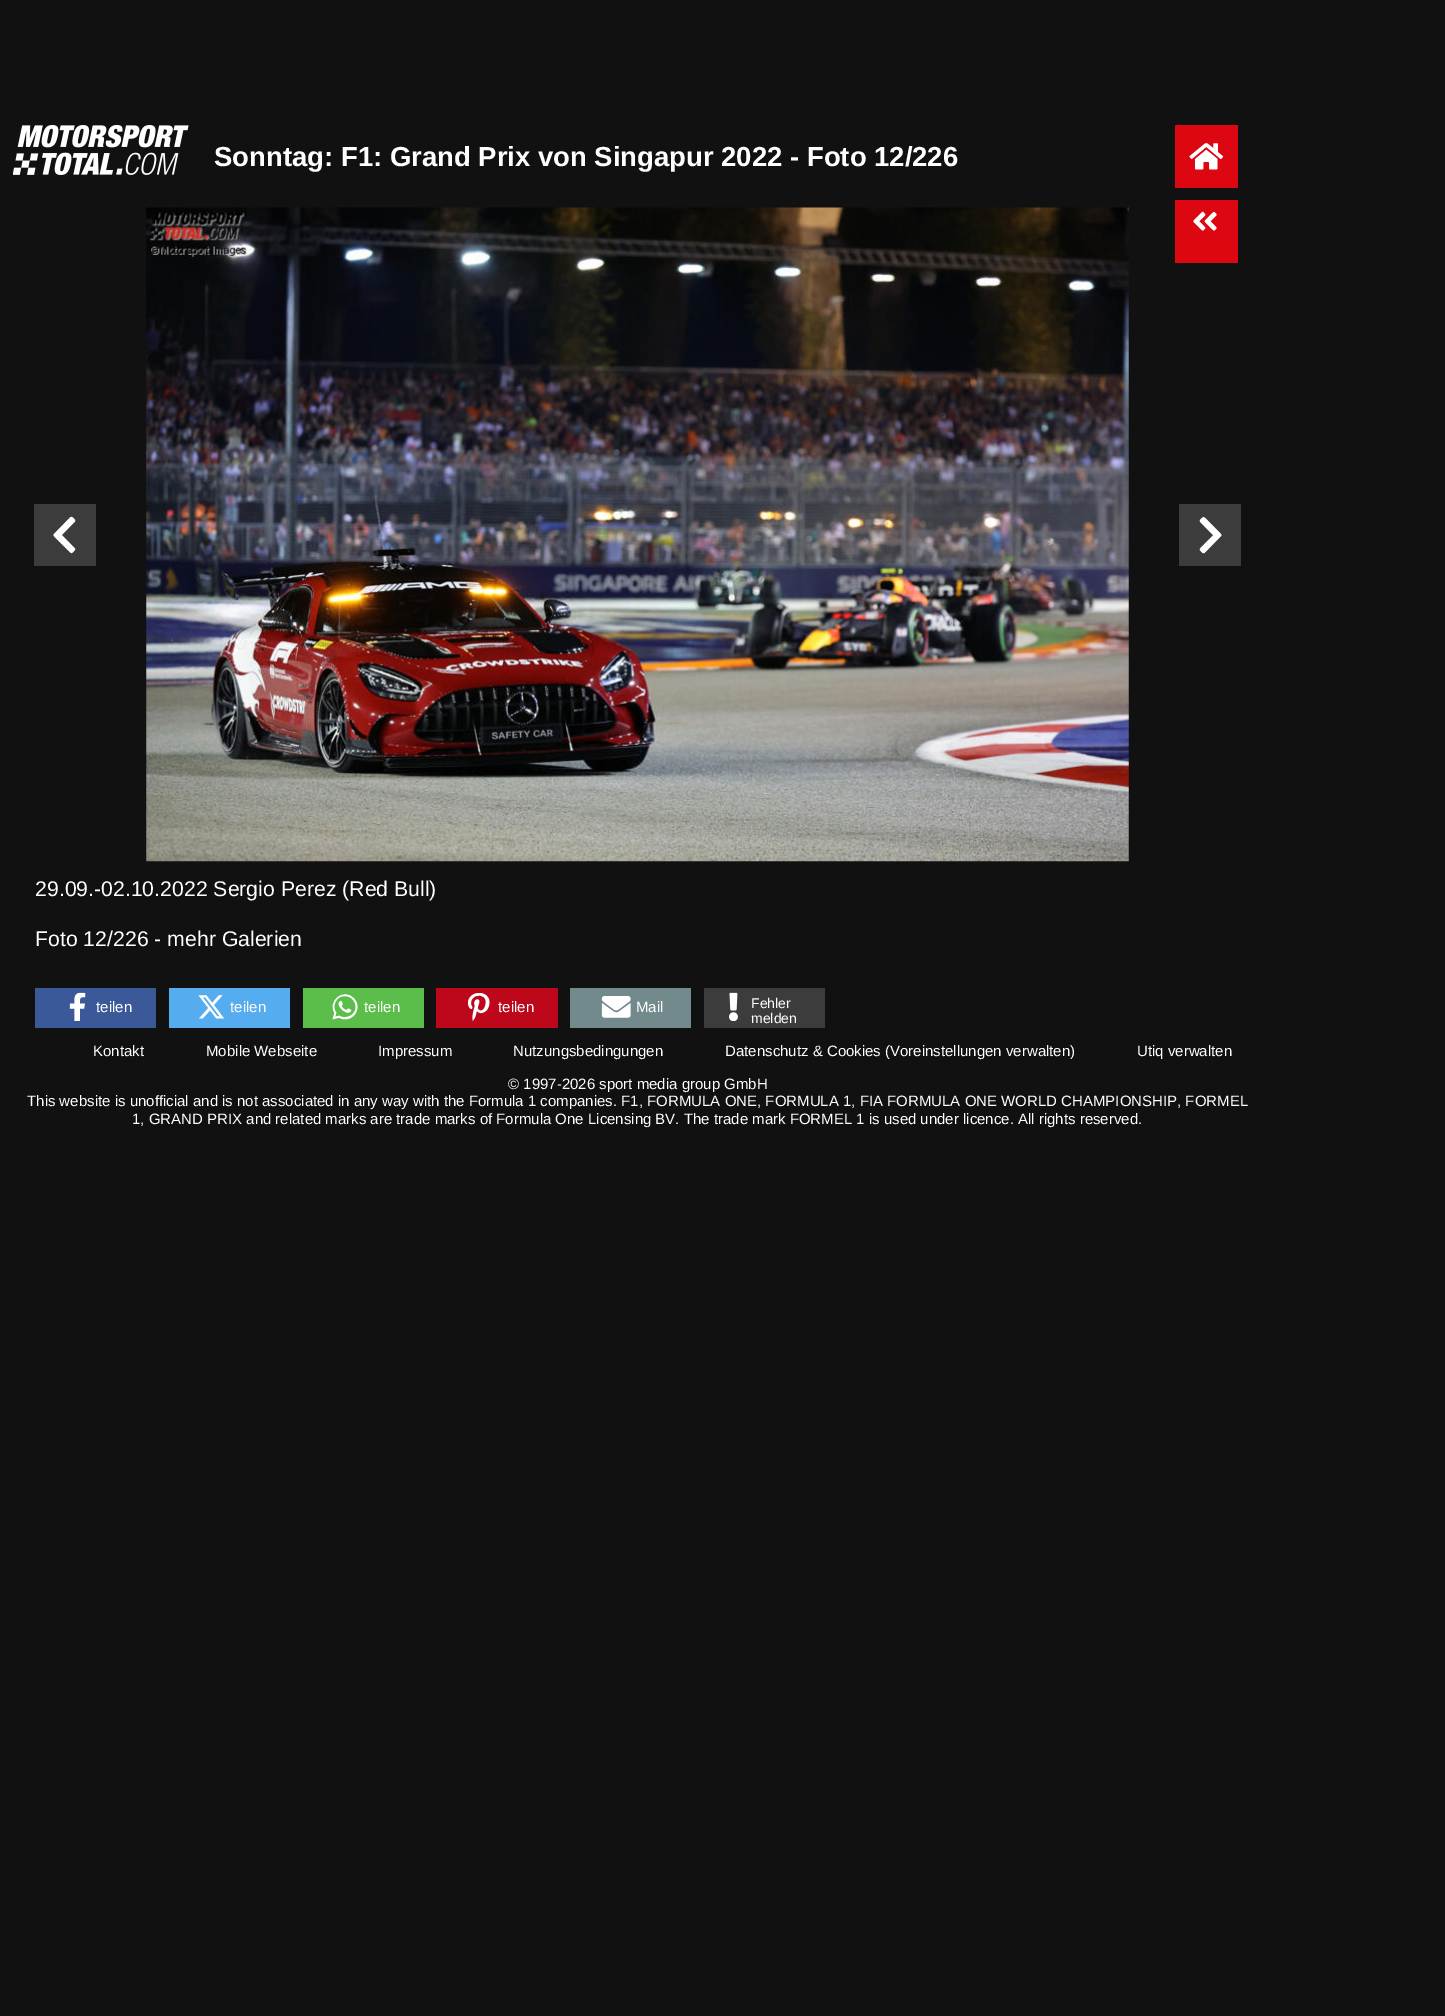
%!PS
<< /PageSize [1445 2016] >> setpagedevice
/picture { 5 dict begin { /h /w /y /x /name } { exch def } forall
  gsave x y translate w h scale
  w h 8 [w 0 0 h 0 0] name (r) file false 3 colorimage grestore end } def
0 2016 translate 1 -1 scale
4 setmiterlimit
0.067 setgray
0 0 1445 2016 rectfill
(img1.rgb) 13 125 176 50 picture
/LiberationSans-Bold [27.5 0 0 -27.5 0 0] selectfont
1 setgray
214 166 moveto (Sonntag: F1: Grand Prix von Singapur 2022 - Foto 12/226) show
0.863 0.027 0.067 setrgbcolor
1175 125 63 63 rectfill
(img2.rgb) 1189 143 35 27 picture
1175 200 63 63 rectfill
(img3.rgb) 1193 211 24 20 picture
0.235 setgray
34 504 62 62 rectfill
(img4.rgb) 53 516 23 38 picture
(img5.rgb) 146 207 983 655 picture
1179 504 62 62 rectfill
(img6.rgb) 1199 517 23 37 picture
/LiberationSans-Regular [21.25 0 0 -21.25 0 0] selectfont
1 setgray
35 896 moveto (29.09.-02.10.2022 Sergio Perez \(Red Bull\)) show
35 946 moveto (Foto 12/226 - mehr Galerien) show
0.231 0.349 0.596 setrgbcolor
35 988 121 40 rectfill
(img7.rgb) 69 992 17 29 picture
/LiberationSans-Regular [15 0 0 -15 0 0] selectfont
1 setgray
96 1012 moveto (teilen) show
0.333 0.675 0.933 setrgbcolor
169 988 121 40 rectfill
(img8.rgb) 198 995 26 24 picture
1 setgray
230 1012 moveto (teilen) show
0.361 0.745 0.29 setrgbcolor
303 988 121 40 rectfill
(img9.rgb) 332 994 26 26 picture
1 setgray
364 1012 moveto (teilen) show
0.741 0.031 0.11 setrgbcolor
436 988 122 40 rectfill
(img10.rgb) 468 993 22 28 picture
1 setgray
498 1012 moveto (teilen) show
0.451 0.541 0.553 setrgbcolor
570 988 121 40 rectfill
(img11.rgb) 601 996 30 22 picture
1 setgray
636 1012 moveto (Mail) show
0.235 setgray
704 988 121 40 rectfill
(img12.rgb) 729 992 9 29 picture
/LiberationSans-Regular [14 0 0 -14 0 0] selectfont
1 setgray
751 1008 moveto (Fehler) show
751 1023 moveto (melden) show
/LiberationSans-Regular [15 0 0 -15 0 0] selectfont
93 1056 moveto (Kontakt) show
206 1056 moveto (Mobile Webseite) show
378 1056 moveto (Impressum) show
513 1056 moveto (Nutzungsbedingungen) show
725 1056 moveto (Datenschutz & Cookies \(Voreinstellungen verwalten\)) show
1137 1056 moveto (Utiq verwalten) show
508 1089 moveto (© 1997-2026 sport media group GmbH) show
27 1106 moveto (This website is unofficial and is not associated in any way with the Formula 1 companies. F1, FORMULA ONE, FORMULA 1, FIA FORMULA ONE WORLD CHAMPIONSHIP, FORMEL) show
132 1124 moveto (1, GRAND PRIX and related marks are trade marks of Formula One Licensing BV. The trade mark FORMEL 1 is used under licence. All rights reserved.) show
showpage
